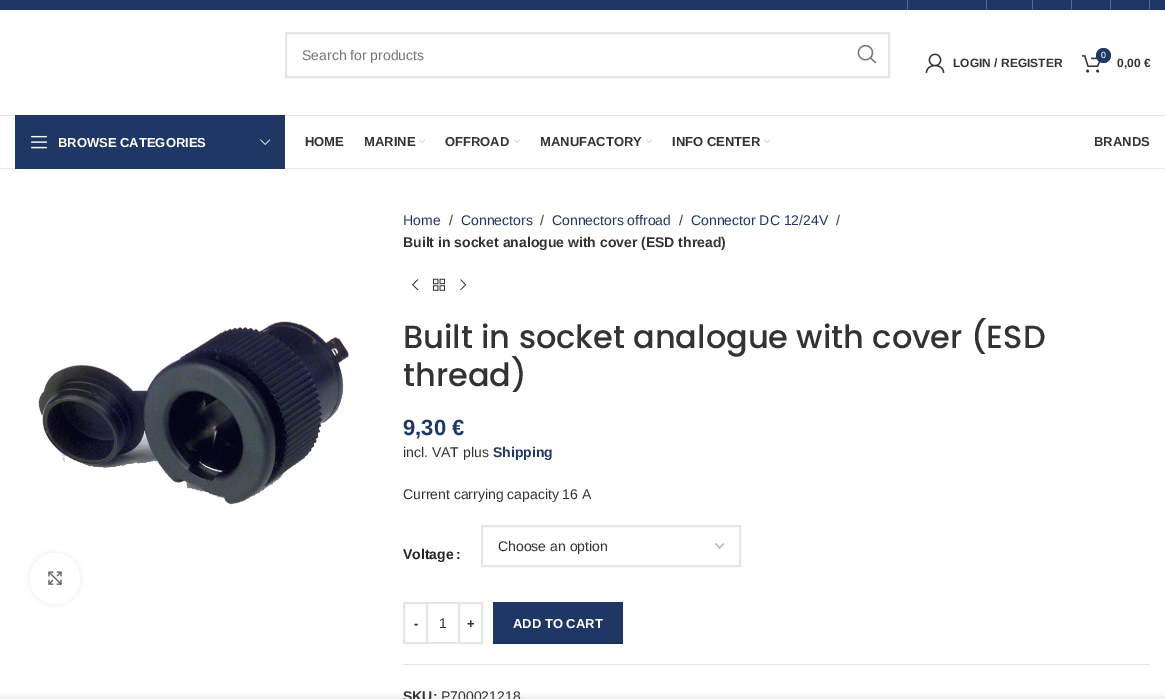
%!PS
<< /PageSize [1165 699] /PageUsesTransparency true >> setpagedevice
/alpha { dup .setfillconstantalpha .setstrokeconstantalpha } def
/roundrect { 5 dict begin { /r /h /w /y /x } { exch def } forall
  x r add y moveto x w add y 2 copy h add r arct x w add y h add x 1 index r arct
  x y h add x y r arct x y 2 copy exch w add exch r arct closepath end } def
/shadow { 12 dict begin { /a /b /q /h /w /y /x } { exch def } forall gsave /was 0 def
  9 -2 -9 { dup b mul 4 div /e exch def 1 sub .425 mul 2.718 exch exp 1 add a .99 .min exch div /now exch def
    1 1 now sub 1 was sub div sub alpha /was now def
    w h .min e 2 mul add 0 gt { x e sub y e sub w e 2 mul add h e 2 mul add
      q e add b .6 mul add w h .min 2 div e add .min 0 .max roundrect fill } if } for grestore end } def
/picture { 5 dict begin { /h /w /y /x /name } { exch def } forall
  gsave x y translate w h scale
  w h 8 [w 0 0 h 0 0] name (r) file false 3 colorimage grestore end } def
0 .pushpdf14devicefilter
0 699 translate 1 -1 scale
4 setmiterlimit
1 setgray
0 0 1165 699 rectfill
0.122 0.216 0.396 setrgbcolor
0 0 1165 10 rectfill
0.341 0.412 0.549 setrgbcolor
907 0 1 10 rectfill
986 0 1 10 rectfill
1032 0 1 10 rectfill
1071 0 1 10 rectfill
1110 0 1 10 rectfill
1149 0 1 10 rectfill
0.91 setgray
0 115 1165 1 rectfill
0.902 setgray
2 setlinewidth
286 33 603 44 rectstroke
/LiberationSans-Regular [14 0 0 -14 0 0] selectfont
0.463 setgray
302 60 moveto (Search for products) show
(img1.rgb) 857 44 20 20 picture
(img2.rgb) 925 53 20 20 picture
/LiberationSans-Bold [12 0 0 -12 0 0] selectfont
0.2 setgray
953 67 moveto (LOGIN / REGISTER) show
(img3.rgb) 1082 55 19 18 picture
0.122 0.216 0.396 setrgbcolor
newpath 1103.5 55.5 7.5 0 360 arc closepath fill
/LiberationSans-Regular [9 0 0 -9 0 0] selectfont
1 setgray
1101 58 moveto (0) show
/LiberationSans-Bold [12 0 0 -12 0 0] selectfont
0.2 setgray
1117 67 moveto (0,00 €) show
0.91 setgray
0 168 1165 1 rectfill
0.122 0.216 0.396 setrgbcolor
15 115 270 54 rectfill
(img4.rgb) 31 135 16 14 picture
/LiberationSans-Bold [13 0 0 -13 0 0] selectfont
1 setgray
58 147 moveto (BROWSE CATEGORIES) show
(img5.rgb) 260 139 11 6 picture
0.2 setgray
305 146 moveto (HOME) show
364 146 moveto (MARINE) show
(img6.rgb) 419 139 6 4 picture
445 146 moveto (OFFROAD) show
(img6.rgb) 514 139 6 4 picture
540 146 moveto (MANUFACTORY) show
(img6.rgb) 646 139 6 4 picture
672 146 moveto (INFO CENTER) show
(img6.rgb) 764 139 6 4 picture
1094 146 moveto (BRANDS) show
(img7.rgb) 38 321 311 184 picture
0 setgray
30 553 50 51 25 2.5 0.08 shadow
1 setgray
30 553 50 51 25 roundrect fill
(img8.rgb) 48 571 14 14 picture
/LiberationSans-Regular [14 0 0 -14 0 0] selectfont
0.122 0.216 0.396 setrgbcolor
403 225 moveto (Home) show
0.2 setgray
449 225 moveto (/) show
0.122 0.216 0.396 setrgbcolor
461 225 moveto (Connectors) show
0.2 setgray
540 225 moveto (/) show
0.122 0.216 0.396 setrgbcolor
552 225 moveto (Connectors offroad) show
0.2 setgray
679 225 moveto (/) show
0.122 0.216 0.396 setrgbcolor
691 225 moveto (Connector DC 12/24V) show
0.2 setgray
836 225 moveto (/) show
/LiberationSans-Bold [14 0 0 -14 0 0] selectfont
403 247 moveto (Built in socket analogue with cover \(ESD thread\)) show
(img9.rgb) 412 279 7 12 picture
(img10.rgb) 433 278 12 13 picture
(img11.rgb) 460 279 7 12 picture
/Poppins-Medium [32 0 0 -32 0 0] selectfont
403 348 moveto (Built in socket analogue with cover \(ESD) show
403 386 moveto (thread\)) show
/LiberationSans-Bold [22 0 0 -22 0 0] selectfont
0.122 0.216 0.396 setrgbcolor
403 435 moveto (9,30 €) show
/LiberationSans-Regular [14 0 0 -14 0 0] selectfont
0.2 setgray
403 457 moveto (incl. VAT plus) show
/LiberationSans-Bold [14 0 0 -14 0 0] selectfont
0.122 0.216 0.396 setrgbcolor
493 457 moveto (Shipping) show
/LiberationSans-Regular [14 0 0 -14 0 0] selectfont
0.2 setgray
403 499 moveto (Current carrying capacity 16 A) show
/LiberationSans-Bold [14 0 0 -14 0 0] selectfont
0.141 setgray
403 559 moveto (Voltage) show
456 559 moveto (:) show
0.733 setgray
1.4 setlinewidth
newpath 715.5 543.5 moveto 719.5 548 lineto 724 543.5 lineto stroke
0.902 setgray
2 setlinewidth
482 526 258 40 rectstroke
/LiberationSans-Regular [14 0 0 -14 0 0] selectfont
0.2 setgray
498 551 moveto (Choose an option) show
0.902 setgray
404 603 23 40 rectstroke
/LiberationSans-Bold [13 0 0 -13 0 0] selectfont
0.2 setgray
414 628 moveto (-) show
0.902 setgray
428 602 30 2 rectfill
428 642 30 2 rectfill
/LiberationSans-Regular [14 0 0 -14 0 0] selectfont
0.2 setgray
439 628 moveto (1) show
0.902 setgray
459 603 23 40 rectstroke
/LiberationSans-Bold [13 0 0 -13 0 0] selectfont
0.2 setgray
467 628 moveto (+) show
0.122 0.216 0.396 setrgbcolor
493 602 130 40 rectfill
0.102 0.184 0.337 setrgbcolor
493 642 130 2 rectfill
1 setgray
513 628 moveto (ADD TO CART) show
0.894 setgray
403 664 747 1 rectfill
/LiberationSans-Bold [14 0 0 -14 0 0] selectfont
0.2 setgray
403 701 moveto (SKU:) show
/LiberationSans-Regular [14 0 0 -14 0 0] selectfont
441 701 moveto (P700021218) show
0 setgray
0 699 1165 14 0 4.5 0.12 shadow
.poppdf14devicefilter showpage
